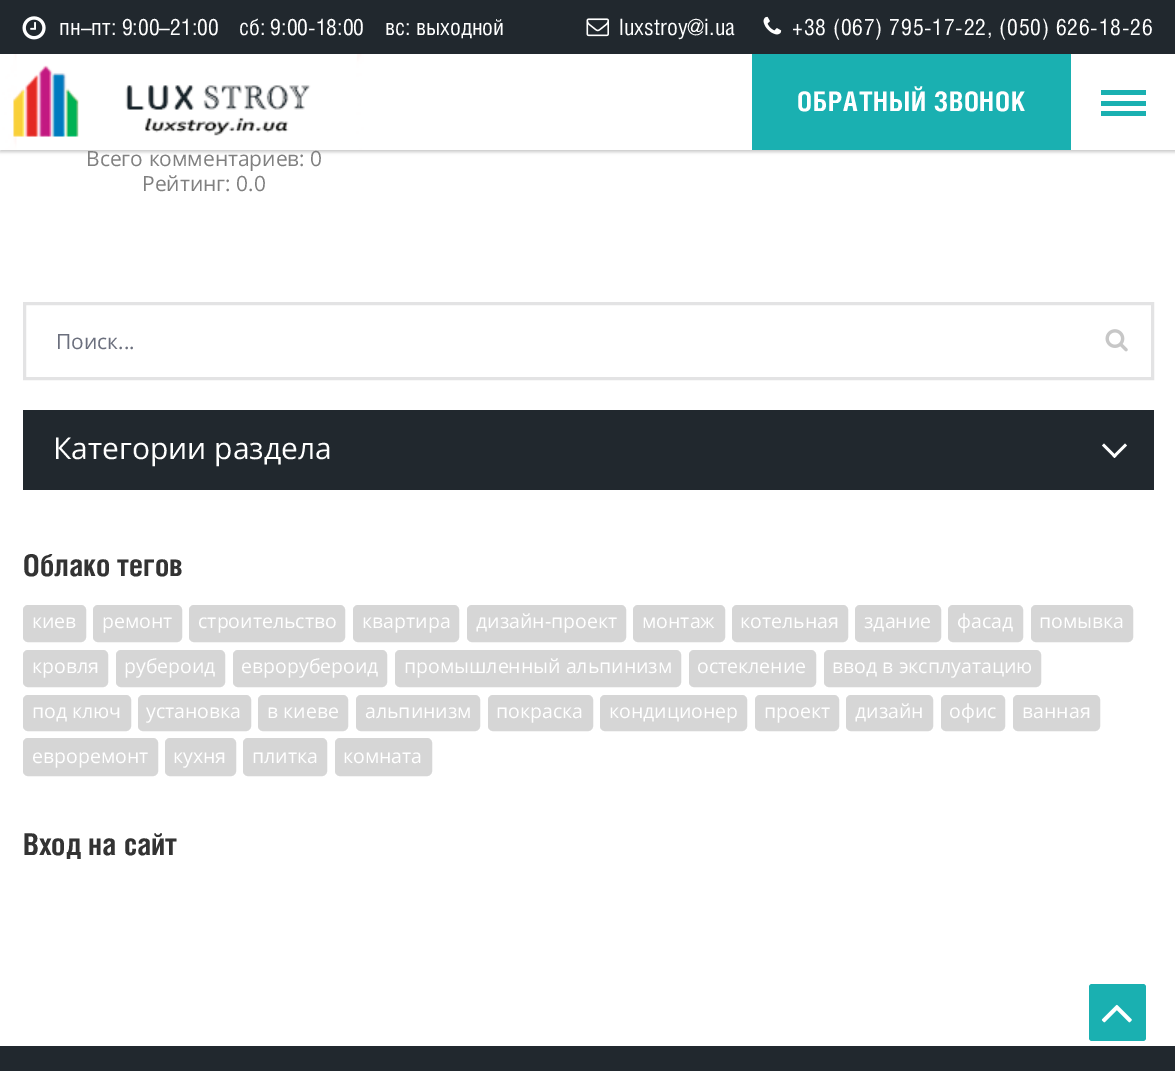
%!PS
<< /PageSize [1175 1071] /PageUsesTransparency true >> setpagedevice
/alpha { dup .setfillconstantalpha .setstrokeconstantalpha } def
/roundrect { 5 dict begin { /r /h /w /y /x } { exch def } forall
  x r add y moveto x w add y 2 copy h add r arct x w add y h add x 1 index r arct
  x y h add x y r arct x y 2 copy exch w add exch r arct closepath end } def
/shadow { 12 dict begin { /a /b /q /h /w /y /x } { exch def } forall gsave /was 0 def
  9 -2 -9 { dup b mul 4 div /e exch def 1 sub .425 mul 2.718 exch exp 1 add a .99 .min exch div /now exch def
    1 1 now sub 1 was sub div sub alpha /was now def
    w h .min e 2 mul add 0 gt { x e sub y e sub w e 2 mul add h e 2 mul add
      q e add b .6 mul add w h .min 2 div e add .min 0 .max roundrect fill } if } for grestore end } def
/picture { 5 dict begin { /h /w /y /x /name } { exch def } forall
  gsave x y translate w h scale
  w h 8 [w 0 0 h 0 0] name (r) file false 3 colorimage grestore end } def
0 .pushpdf14devicefilter
0 1071 translate 1 -1 scale
4 setmiterlimit
1 setgray
0 0 1175 1071 rectfill
0 setgray
0 2 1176 150 0 1.5 0.2 shadow
1 setgray
12 54 1163 96 rectfill
0.129 0.157 0.18 setrgbcolor
0 0 1175 54 rectfill
(img1.rgb) 22 16 24 24 picture
/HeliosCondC-Regular [22.5 0 0 -22.5 0 0] selectfont
1 setgray
59 35 moveto (пн–пт: 9:00–21:00) show
239 35 moveto (сб: 9:00-18:00) show
385 35 moveto (вс: выходной) show
(img2.rgb) 586 18 23 19 picture
619 35 moveto (luxstroy@i.ua) show
(img3.rgb) 763 16 19 19 picture
792 35 moveto 0.75 0 (+38 \(067\) 795-17-22, \(050\) 626-18-26) ashow
(img4.rgb) 0 54 366 96 picture
0.102 0.69 0.694 setrgbcolor
752 54 319 96 rectfill
/HeliosCondC-Bold [27 0 0 -27 0 0] selectfont
1 setgray
797 111 moveto 0.75 0 (ОБРАТНЫЙ ЗВОНОК) ashow
0.102 0.69 0.694 setrgbcolor
1101 90 45 5 rectfill
1101 101 45 5 rectfill
1101 111 45 5 rectfill
/OpenSans-Regular [21 0 0 -21 0 0] selectfont
0.502 setgray
86 166 moveto (Всего комментариев: 0) show
142 191 moveto (Рейтинг: 0.0) show
0.89 0.89 0.894 setrgbcolor
3 setlinewidth
24.5 303.5 1128 75 rectstroke
0.42 0.435 0.49 setrgbcolor
56 349 moveto (Поиск...) show
(img5.rgb) 1105 329 23 23 picture
0.129 0.157 0.18 setrgbcolor
23 410 1131 80 rectfill
/OpenSans-Regular [30 0 0 -30 0 0] selectfont
1 setgray
53 459 moveto (Категории раздела) show
newpath 1125 443.5 moveto 1127 445.5 lineto 1114.5 458 lineto 1112.5 456 lineto closepath fill
newpath 1104 443.5 moveto 1116.5 456 lineto 1114.5 458 lineto 1102 445.5 lineto closepath fill
/HeliosCondC-Bold [30 0 0 -30 0 0] selectfont
0.2 setgray
23 576 moveto (Облако тегов) show
0.839 setgray
24 606 61 35 4 roundrect gsave fill grestore
2 setlinewidth
stroke
/OpenSans-Regular [19.5 0 0 -19.5 0 0] selectfont
1 setgray
32 628 moveto (киев) show
0.839 setgray
94 606 87 35 4 roundrect gsave fill grestore
stroke
1 setgray
102 628 moveto (ремонт) show
0.839 setgray
190 606 154 35 4 roundrect gsave fill grestore
stroke
1 setgray
198 628 moveto (строительство) show
0.839 setgray
354 606 104 35 4 roundrect gsave fill grestore
stroke
1 setgray
362 628 moveto (квартира) show
0.839 setgray
468 606 157 35 4 roundrect gsave fill grestore
stroke
1 setgray
476 628 moveto (дизайн-проект) show
0.839 setgray
634 606 90 35 4 roundrect gsave fill grestore
stroke
1 setgray
642 628 moveto (монтаж) show
0.839 setgray
733 606 114 35 4 roundrect gsave fill grestore
stroke
1 setgray
740 628 moveto (котельная) show
0.839 setgray
856 606 84 35 4 roundrect gsave fill grestore
stroke
1 setgray
864 628 moveto (здание) show
0.839 setgray
949 606 73 35 4 roundrect gsave fill grestore
stroke
1 setgray
957 628 moveto (фасад) show
0.839 setgray
1032 606 100 35 4 roundrect gsave fill grestore
stroke
1 setgray
1039 628 moveto (помывка) show
0.839 setgray
24 651 83 35 4 roundrect gsave fill grestore
stroke
1 setgray
32 673 moveto (кровля) show
0.839 setgray
117 651 107 35 4 roundrect gsave fill grestore
stroke
1 setgray
124 673 moveto (рубероид) show
0.839 setgray
234 651 152 35 4 roundrect gsave fill grestore
stroke
1 setgray
241 673 moveto (еврорубероид) show
0.839 setgray
396 651 284 35 4 roundrect gsave fill grestore
stroke
1 setgray
404 673 moveto (промышленный альпинизм) show
0.839 setgray
690 651 125 35 4 roundrect gsave fill grestore
stroke
1 setgray
697 673 moveto (остекление) show
0.839 setgray
825 651 215 35 4 roundrect gsave fill grestore
stroke
1 setgray
832 673 moveto (ввод в эксплуатацию) show
0.839 setgray
24 696 106 34 4 roundrect gsave fill grestore
stroke
1 setgray
32 718 moveto (под ключ) show
0.839 setgray
139 696 111 34 4 roundrect gsave fill grestore
stroke
1 setgray
146 718 moveto (установка) show
0.839 setgray
259 696 88 34 4 roundrect gsave fill grestore
stroke
1 setgray
267 718 moveto (в киеве) show
0.839 setgray
357 696 122 34 4 roundrect gsave fill grestore
stroke
1 setgray
365 718 moveto (альпинизм) show
0.839 setgray
489 696 103 34 4 roundrect gsave fill grestore
stroke
1 setgray
496 718 moveto (покраска) show
0.839 setgray
601 696 145 34 4 roundrect gsave fill grestore
stroke
1 setgray
609 718 moveto (кондиционер) show
0.839 setgray
756 696 82 34 4 roundrect gsave fill grestore
stroke
1 setgray
764 718 moveto (проект) show
0.839 setgray
847 696 85 34 4 roundrect gsave fill grestore
stroke
1 setgray
855 718 moveto (дизайн) show
0.839 setgray
942 696 62 34 4 roundrect gsave fill grestore
stroke
1 setgray
949 718 moveto (офис) show
0.839 setgray
1014 696 85 34 4 roundrect gsave fill grestore
stroke
1 setgray
1022 718 moveto (ванная) show
0.839 setgray
24 739 133 36 4 roundrect gsave fill grestore
stroke
1 setgray
32 763 moveto (евроремонт) show
0.839 setgray
166 739 69 36 4 roundrect gsave fill grestore
stroke
1 setgray
173 763 moveto (кухня) show
0.839 setgray
244 739 82 36 4 roundrect gsave fill grestore
stroke
1 setgray
252 763 moveto (плитка) show
0.839 setgray
336 739 95 36 4 roundrect gsave fill grestore
stroke
1 setgray
343 763 moveto (комната) show
/HeliosCondC-Bold [30 0 0 -30 0 0] selectfont
0.2 setgray
23 855 moveto (Вход на сайт) show
0.102 0.69 0.694 setrgbcolor
1089 984 57 57 3 roundrect fill
(img6.rgb) 1101 1004 31 19 picture
0.129 0.157 0.18 setrgbcolor
0 1046 1175 25 rectfill
.poppdf14devicefilter showpage
